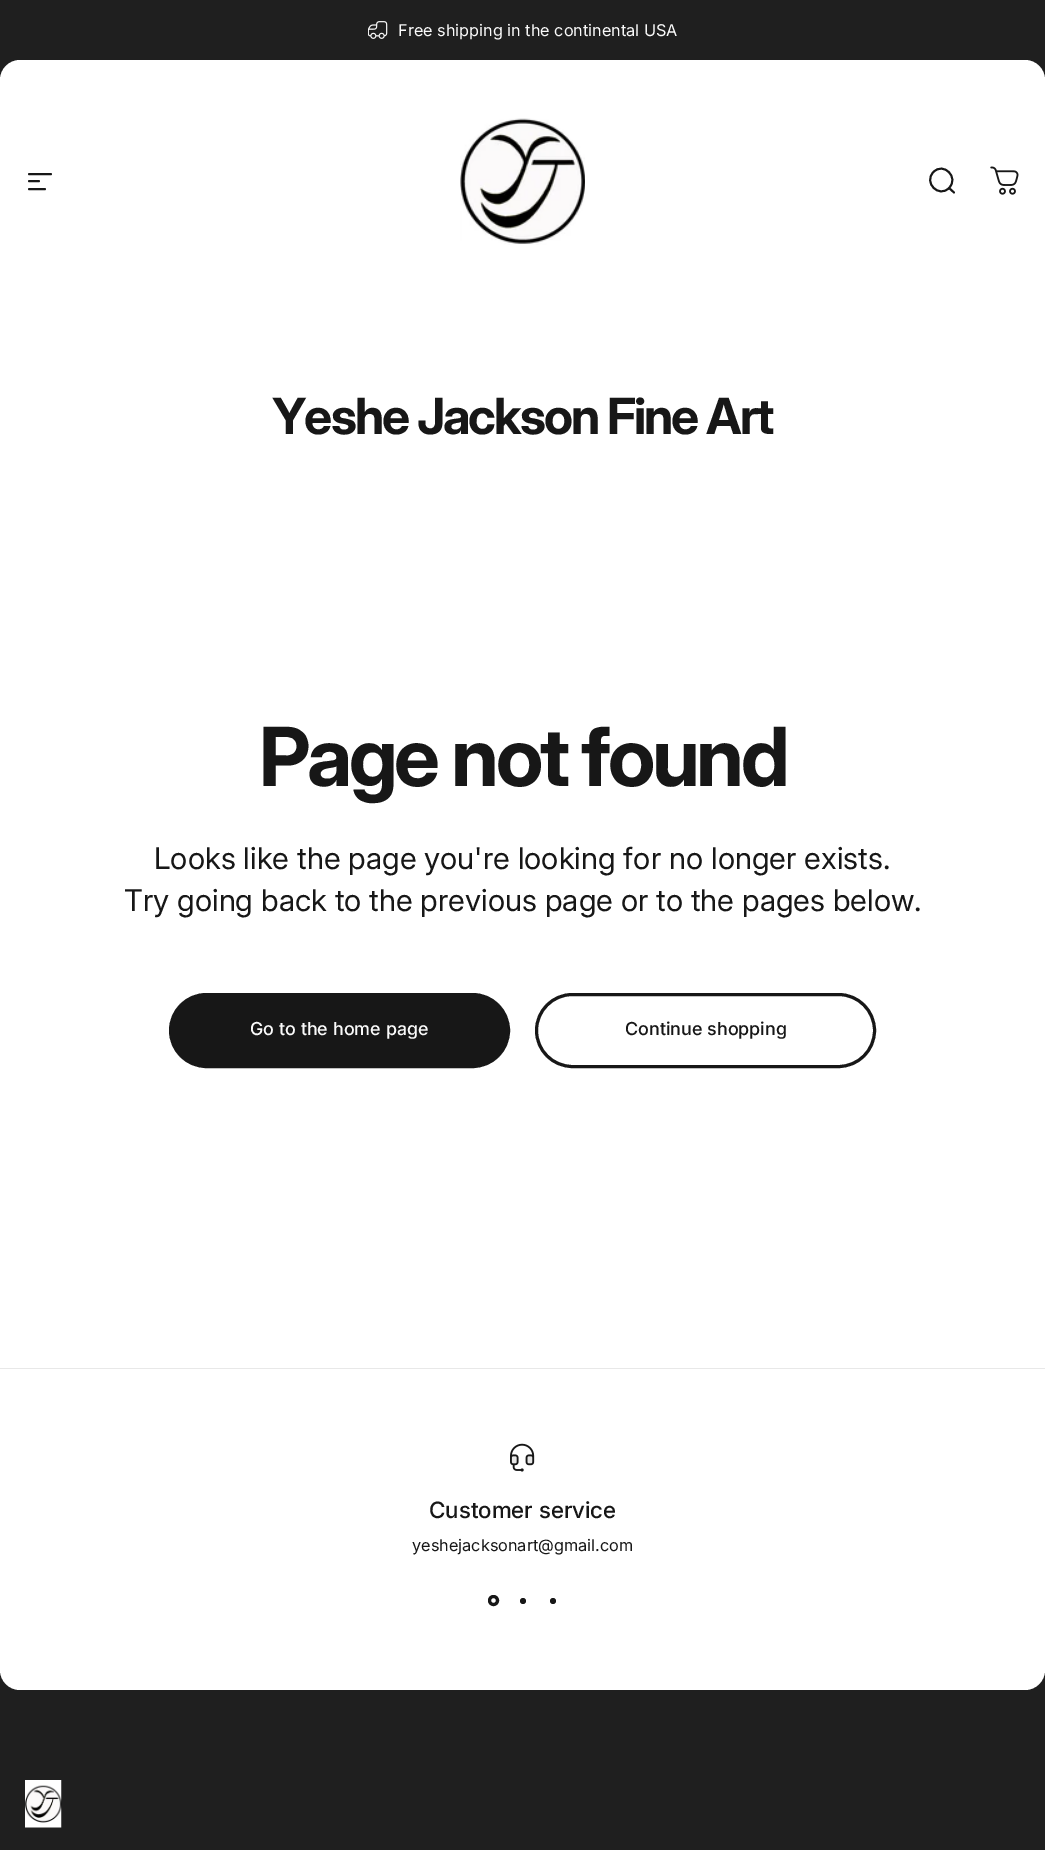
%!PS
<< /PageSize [1045 1850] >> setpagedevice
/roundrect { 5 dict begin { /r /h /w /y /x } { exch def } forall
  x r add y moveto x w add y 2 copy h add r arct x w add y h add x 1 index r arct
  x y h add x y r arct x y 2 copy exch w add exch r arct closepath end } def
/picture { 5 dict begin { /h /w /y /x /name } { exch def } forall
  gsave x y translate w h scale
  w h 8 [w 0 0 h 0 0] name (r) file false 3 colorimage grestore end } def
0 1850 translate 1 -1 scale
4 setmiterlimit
1 setgray
0 0 1045 1850 rectfill
0.122 setgray
0 0 1045 20 rectfill
newpath 20 0 moveto 1025 0 lineto 1036 0 1045 9 1045 20 curveto 1045 80 lineto 0 80 lineto 0 20 lineto 0 9 9 0 20 0 curveto closepath fill
(img1.rgb) 368 21 20 18 picture
/Inter-Regular [16.25 0 0 -16.25 0 0] selectfont
0.98 setgray
398 36 moveto (Free shipping in the continental USA) show
1 setgray
newpath 20 60 moveto 1025 60 lineto 1036 60 1045 69 1045 80 curveto 1045 301 lineto 0 301 lineto 0 80 lineto 0 69 9 60 20 60 curveto closepath fill
0.09 setgray
1.9 setlinewidth
1 setlinecap
newpath 29 174 moveto 51 174 lineto 29 181 moveto 39 181 lineto 29 189 moveto 45 189 lineto stroke
(img2.rgb) 460 118 125 127 picture
newpath 954 192.5 moveto 949 188 lineto 949 188 moveto 959.5 177.5 943.5 161.5 933.5 172 curveto 923 182.5 939 198.5 949 188 curveto closepath stroke
(img3.rgb) 990 166 29 29 picture
/Inter-Bold [50 0 0 -50 0 0] selectfont
272 434 moveto -2 0 (Yeshe Jackson Fine Art) ashow
/Inter-Bold [81.5 0 0 -81.5 0 0] selectfont
259 786 moveto -3.25 0 (Page not found) ashow
/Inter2-Regular [30 0 0 -30 0 0] selectfont
154 869 moveto (Looks like the page you're looking for no longer exists.) show
124 911 moveto (Try going back to the previous page or to the pages below.) show
170.5 994.5 338 72 36 roundrect gsave fill grestore
3 setlinewidth
0 setlinecap
stroke
/Inter2-Medium [17.9 0 0 -17.9 0 0] selectfont
0.98 setgray
250 1035 moveto (Go to the home page) show
0.09 setgray
536.5 994.5 338 72 36 roundrect stroke
625 1035 moveto (Continue shopping) show
0.122 setgray
0 1670 1045 180 rectfill
1 setgray
newpath 0 1368 moveto 1045 1368 lineto 1045 1670 lineto 1045 1681 1036 1690 1025 1690 curveto 20 1690 lineto 9 1690 0 1681 0 1670 curveto closepath fill
0.91 setgray
0 1368 1045 1 rectfill
(img4.rgb) 510 1443 25 29 picture
/Inter-Medium [22.5 0 0 -22.5 0 0] selectfont
0.09 setgray
429 1518 moveto (Customer service) show
/Inter-Regular [16.25 0 0 -16.25 0 0] selectfont
412 1551 moveto (yeshejacksonart@gmail.com) show
newpath 493.5 1600.5 4 0 360 arc closepath stroke
newpath 523 1601 3 0 360 arc closepath fill
newpath 553 1601 3 0 360 arc closepath fill
(img5.rgb) 25 1780 37 48 picture
showpage
